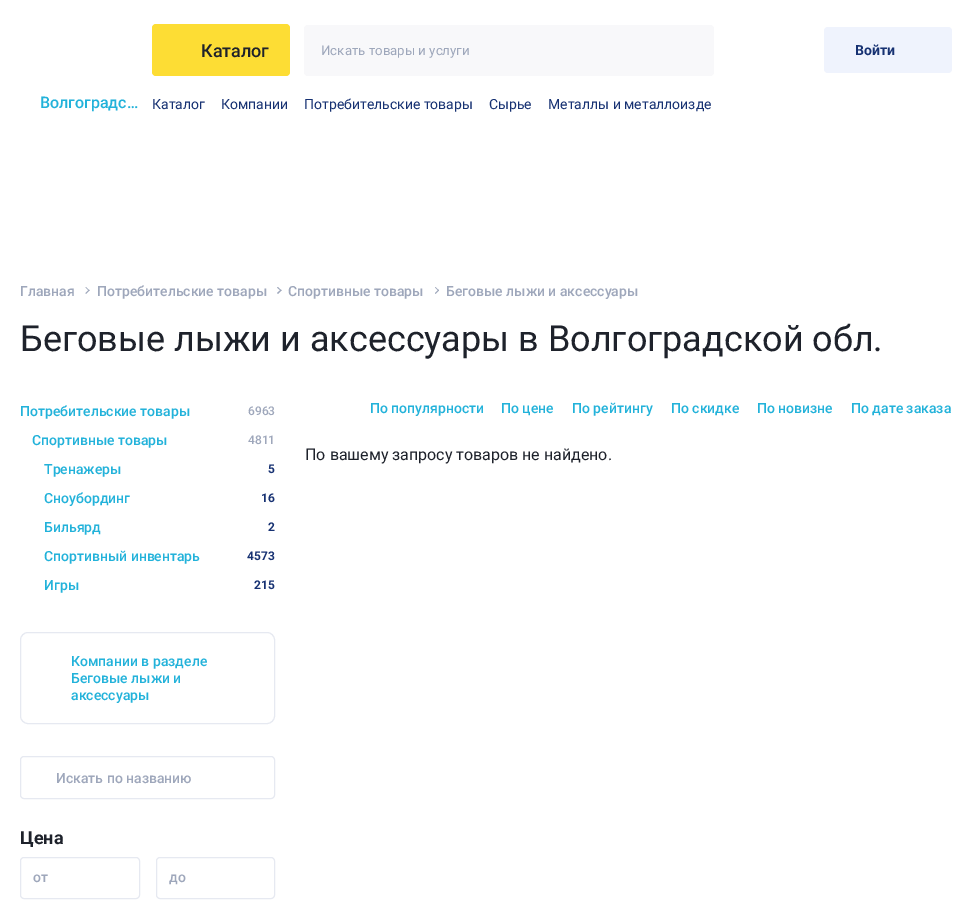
%!PS
<< /PageSize [972 914] >> setpagedevice
/roundrect { 5 dict begin { /r /h /w /y /x } { exch def } forall
  x r add y moveto x w add y 2 copy h add r arct x w add y h add x 1 index r arct
  x y h add x y r arct x y 2 copy exch w add exch r arct closepath end } def
0 914 translate 1 -1 scale
4 setmiterlimit
1 setgray
0 0 972 914 rectfill
0.992 0.867 0.204 setrgbcolor
152 24 138 52 4 roundrect fill
/Roboto-Medium [18 0 0 -18 0 0] selectfont
0.118 0.133 0.169 setrgbcolor
201 57 moveto (Каталог) show
0.973 0.973 0.98 setrgbcolor
304 25 410 51 4 roundrect fill
/Roboto-Regular [13.25 0 0 -13.25 0 0] selectfont
0.62 0.655 0.733 setrgbcolor
321 55 moveto (Искать товары и услуги) show
0.937 0.953 0.992 setrgbcolor
824 27 128 46 4 roundrect fill
/Roboto-Bold [14 0 0 -14 0 0] selectfont
0.086 0.192 0.447 setrgbcolor
855 55 moveto (Войти) show
/Roboto-Medium [16 0 0 -16 0 0] selectfont
0.133 0.698 0.855 setrgbcolor
40 108 moveto (Волгоградс…) show
/Roboto-Regular [14 0 0 -14 0 0] selectfont
0.086 0.192 0.447 setrgbcolor
152 109 moveto (Каталог) show
221 109 moveto (Компании) show
304 109 moveto (Потребительские товары) show
489 109 moveto (Сырье) show
548 109 moveto (Металлы и металлоизде) show
/Roboto-Medium [14 0 0 -14 0 0] selectfont
0.62 0.655 0.733 setrgbcolor
20 296 moveto (Главная) show
newpath 85.5 287.5 moveto 86 287 lineto 89.5 290.5 lineto 89 291 lineto closepath fill
newpath 85.5 293 moveto 89 289.5 lineto 89.5 290.5 lineto 86 294 lineto closepath fill
97 296 moveto (Потребительские товары) show
newpath 277 287.5 moveto 278 287 lineto 281.5 290.5 lineto 281 291 lineto closepath fill
newpath 277 293 moveto 281 289.5 lineto 281.5 290.5 lineto 278 294 lineto closepath fill
288 296 moveto (Спортивные товары) show
newpath 435 287.5 moveto 435.5 287 lineto 439 290.5 lineto 438.5 291 lineto closepath fill
newpath 435 293 moveto 438.5 289.5 lineto 439 290.5 lineto 435.5 294 lineto closepath fill
446 296 moveto (Беговые лыжи и аксессуары) show
/Roboto-Regular [36 0 0 -36 0 0] selectfont
0.118 0.133 0.169 setrgbcolor
20 351 moveto (Беговые лыжи и аксессуары в Волгоградской обл.) show
/Roboto-Medium [14 0 0 -14 0 0] selectfont
0.133 0.698 0.855 setrgbcolor
20 416 moveto (Потребительские товары) show
/Roboto-Medium [12 0 0 -12 0 0] selectfont
0.62 0.655 0.733 setrgbcolor
248 415 moveto (6963) show
/Roboto-Medium [14 0 0 -14 0 0] selectfont
0.133 0.698 0.855 setrgbcolor
32 445 moveto (Спортивные товары) show
/Roboto-Medium [12 0 0 -12 0 0] selectfont
0.62 0.655 0.733 setrgbcolor
248 444 moveto (4811) show
/Roboto-Medium [14 0 0 -14 0 0] selectfont
0.133 0.698 0.855 setrgbcolor
44 474 moveto (Тренажеры) show
/Roboto-Bold [12 0 0 -12 0 0] selectfont
0.086 0.192 0.447 setrgbcolor
268 473 moveto (5) show
/Roboto-Medium [14 0 0 -14 0 0] selectfont
0.133 0.698 0.855 setrgbcolor
44 503 moveto (Сноубординг) show
/Roboto-Bold [12 0 0 -12 0 0] selectfont
0.086 0.192 0.447 setrgbcolor
261 502 moveto (16) show
/Roboto-Medium [14 0 0 -14 0 0] selectfont
0.133 0.698 0.855 setrgbcolor
44 532 moveto (Бильярд) show
/Roboto-Bold [12 0 0 -12 0 0] selectfont
0.086 0.192 0.447 setrgbcolor
268 531 moveto (2) show
/Roboto-Medium [14 0 0 -14 0 0] selectfont
0.133 0.698 0.855 setrgbcolor
44 561 moveto (Спортивный инвентарь) show
/Roboto-Bold [12 0 0 -12 0 0] selectfont
0.086 0.192 0.447 setrgbcolor
247 560 moveto (4573) show
/Roboto-Medium [14 0 0 -14 0 0] selectfont
0.133 0.698 0.855 setrgbcolor
44 590 moveto (Игры) show
/Roboto-Bold [12 0 0 -12 0 0] selectfont
0.086 0.192 0.447 setrgbcolor
254 589 moveto (215) show
0.902 0.914 0.945 setrgbcolor
20.5 632.5 254 91 7.5 roundrect stroke
/Roboto-Medium [14 0 0 -14 0 0] selectfont
0.133 0.698 0.855 setrgbcolor
71 666 moveto (Компании в разделе) show
71 683 moveto (Беговые лыжи и) show
71 700 moveto (аксессуары) show
0.902 0.914 0.945 setrgbcolor
20.5 756.5 254 42 3.5 roundrect stroke
0.62 0.655 0.733 setrgbcolor
56 783 moveto (Искать по названию) show
/Roboto-Bold [18 0 0 -18 0 0] selectfont
0.118 0.133 0.169 setrgbcolor
20 844 moveto (Цена) show
0.902 0.914 0.945 setrgbcolor
20.5 857.5 119 41 3.5 roundrect stroke
/Roboto-Medium [14 0 0 -14 0 0] selectfont
0.62 0.655 0.733 setrgbcolor
33 882 moveto (от) show
0.902 0.914 0.945 setrgbcolor
156.5 857.5 118 41 3.5 roundrect stroke
0.62 0.655 0.733 setrgbcolor
169 882 moveto (до) show
0.133 0.698 0.855 setrgbcolor
370 413 moveto (По популярности) show
501 413 moveto (По цене) show
572 413 moveto (По рейтингу) show
671 413 moveto (По скидке) show
757 413 moveto (По новизне) show
851 413 moveto (По дате заказа) show
/Roboto-Regular [16 0 0 -16 0 0] selectfont
0.118 0.133 0.169 setrgbcolor
305 460 moveto (По вашему запросу товаров не найдено.) show
showpage
